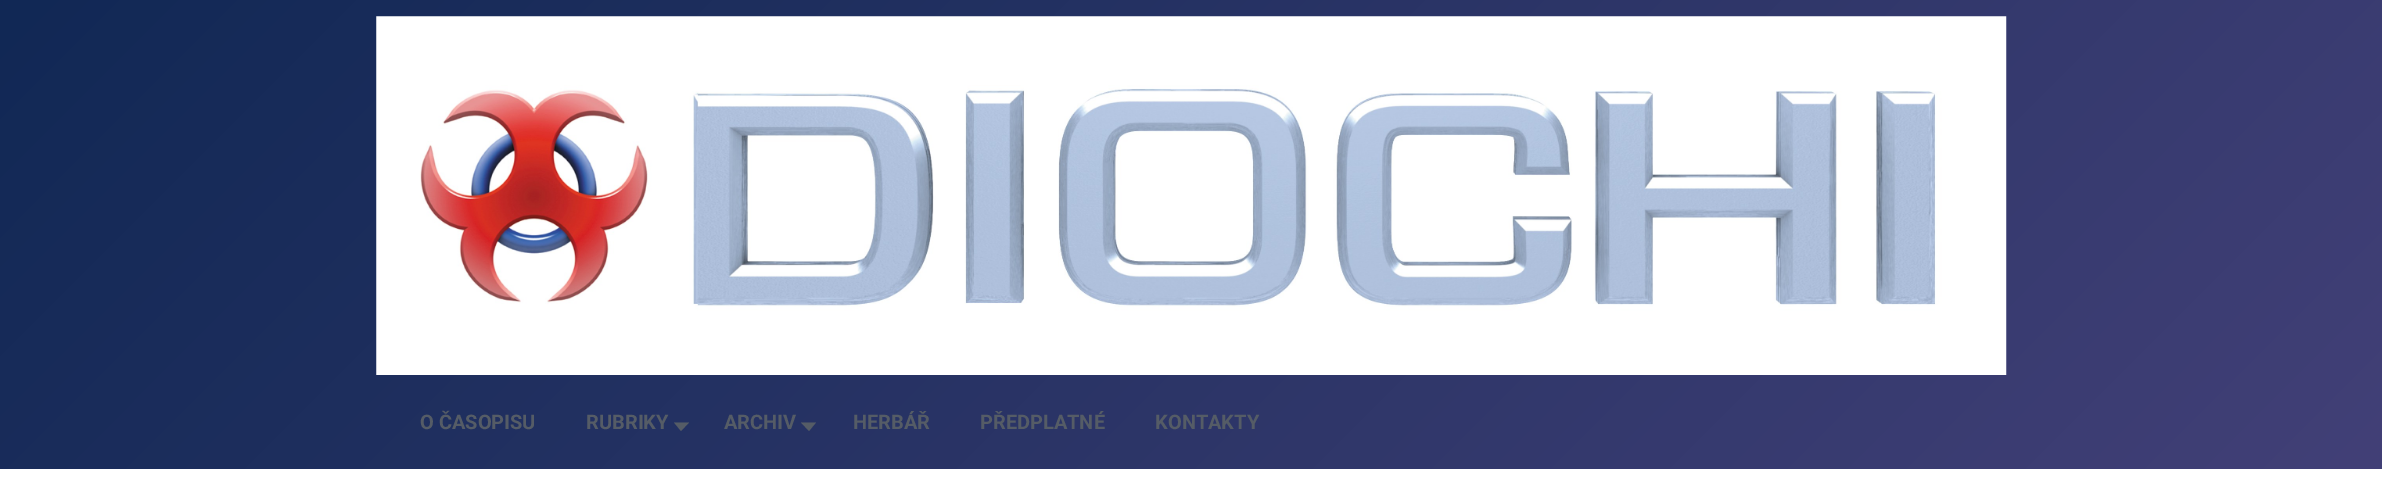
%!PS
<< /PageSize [2382 500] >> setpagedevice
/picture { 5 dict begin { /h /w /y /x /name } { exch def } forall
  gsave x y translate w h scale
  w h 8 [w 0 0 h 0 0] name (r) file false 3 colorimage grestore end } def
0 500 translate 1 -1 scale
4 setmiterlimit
1 setgray
0 0 2382 500 rectfill
gsave newpath 0 0 moveto 2382 0 lineto 2382 469 lineto 0 469 lineto closepath clip newpath
<< /ShadingType 2 /ColorSpace /DeviceRGB /Coords [478 -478 1904 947] /Extend [true true] /Function << /FunctionType 2 /Domain [0 1] /C0 [0.067 0.157 0.333] /C1 [0.259 0.251 0.467] /N 1 >> >> shfill grestore
(img1.rgb) 376 16 1631 359 picture
/Roboto-Bold [20 0 0 -20 0 0] selectfont
0.333 0.361 0.4 setrgbcolor
420 429 moveto (O ČASOPISU) show
586 429 moveto (RUBRIKY) show
newpath 674 422.5 moveto 689 422.5 lineto 681 431 lineto closepath fill
724 429 moveto (ARCHIV) show
newpath 801 422.5 moveto 816 422.5 lineto 809 431 lineto closepath fill
853 429 moveto (HERBÁŘ) show
980 429 moveto (PŘEDPLATNÉ) show
1155 429 moveto (KONTAKTY) show
showpage
